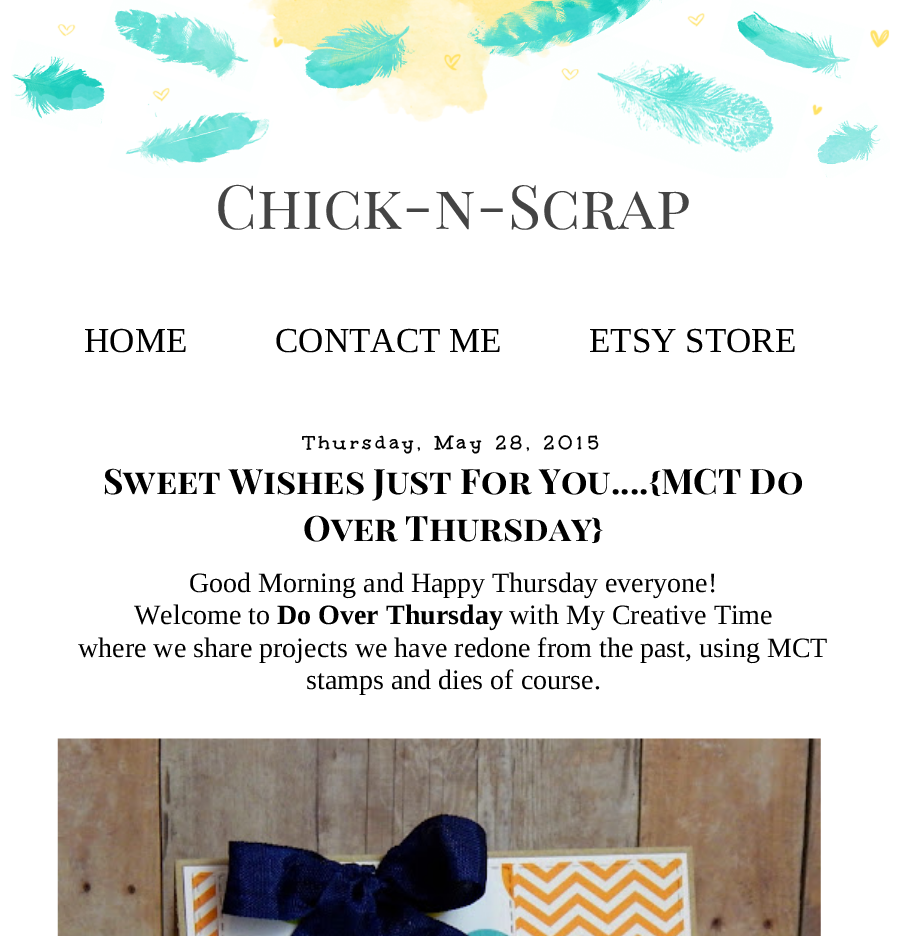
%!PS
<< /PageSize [906 936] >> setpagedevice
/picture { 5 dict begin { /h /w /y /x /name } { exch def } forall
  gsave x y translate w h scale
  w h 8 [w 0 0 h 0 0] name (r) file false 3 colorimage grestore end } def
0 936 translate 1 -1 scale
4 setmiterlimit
1 setgray
0 0 906 936 rectfill
(img1.rgb) 11 0 879 178 picture
/PlayfairDisplaySC-Regular [61.25 0 0 -61.25 0 0] selectfont
0.267 setgray
215 229 moveto (Chick-n-Scrap) show
/LiberationSerif-Regular [35 0 0 -35 0 0] selectfont
0 setgray
84 352 moveto (HOME) show
275 352 moveto (CONTACT ME) show
589 352 moveto (ETSY STORE) show
/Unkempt-Bold [21 0 0 -21 0 0] selectfont
304 450 moveto 3.5 0 (Thursday, May 28, 2015) ashow
/PlayfairDisplaySC-Bold [35 0 0 -35 0 0] selectfont
103 494 moveto (Sweet Wishes Just For You....{MCT Do) show
303 541 moveto (Over Thursday}) show
/LiberationSerif-Regular [28 0 0 -28 0 0] selectfont
189 592 moveto (Good Morning and Happy Thursday everyone!) show
134 624 moveto (Welcome to) show
/LiberationSerif-Bold [28 0 0 -28 0 0] selectfont
277 624 moveto (Do Over Thursday) show
/LiberationSerif-Regular [28 0 0 -28 0 0] selectfont
509 624 moveto (with My Creative Time) show
78 657 moveto (where we share projects we have redone from the past, using MCT) show
306 689 moveto (stamps and dies of course.) show
(img2.rgb) 57 738 764 198 picture
showpage
